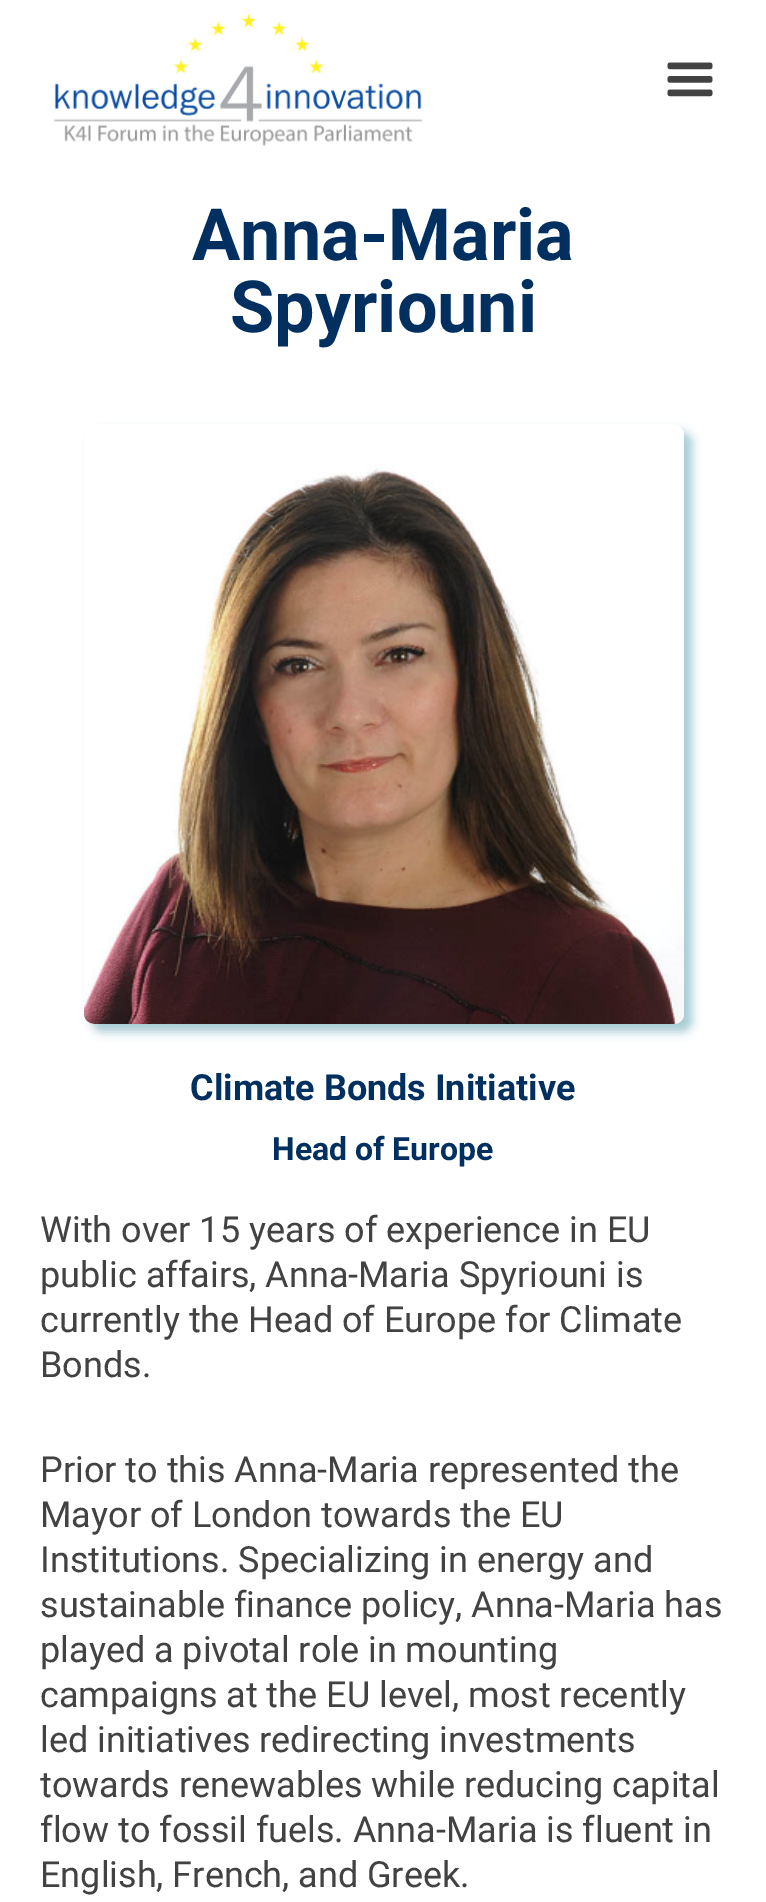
%!PS
<< /PageSize [766 1902] /PageUsesTransparency true >> setpagedevice
/alpha { dup .setfillconstantalpha .setstrokeconstantalpha } def
/roundrect { 5 dict begin { /r /h /w /y /x } { exch def } forall
  x r add y moveto x w add y 2 copy h add r arct x w add y h add x 1 index r arct
  x y h add x y r arct x y 2 copy exch w add exch r arct closepath end } def
/shadow { 12 dict begin { /a /b /q /h /w /y /x } { exch def } forall gsave /was 0 def
  9 -2 -9 { dup b mul 4 div /e exch def 1 sub .425 mul 2.718 exch exp 1 add a .99 .min exch div /now exch def
    1 1 now sub 1 was sub div sub alpha /was now def
    w h .min e 2 mul add 0 gt { x e sub y e sub w e 2 mul add h e 2 mul add
      q e add b .6 mul add w h .min 2 div e add .min 0 .max roundrect fill } if } for grestore end } def
/picture { 5 dict begin { /h /w /y /x /name } { exch def } forall
  gsave x y translate w h scale
  w h 8 [w 0 0 h 0 0] name (r) file false 3 colorimage grestore end } def
0 .pushpdf14devicefilter
0 1902 translate 1 -1 scale
4 setmiterlimit
1 setgray
0 0 766 1902 rectfill
(img1.rgb) 53 13 370 133 picture
(img2.rgb) 667 62 46 35 picture
/Roboto-Bold [72 0 0 -72 0 0] selectfont
0.004 0.184 0.376 setrgbcolor
192 260 moveto (Anna-Maria) show
230 332 moveto (Spyriouni) show
gsave
newpath 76 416 moveto 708 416 lineto 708 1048 lineto 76 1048 lineto closepath 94 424 moveto 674 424 lineto 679.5 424 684 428.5 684 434 curveto 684 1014 lineto 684 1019.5 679.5 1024 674 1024 curveto 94 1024 lineto 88.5 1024 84 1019.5 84 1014 curveto 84 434 lineto 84 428.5 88.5 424 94 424 curveto closepath eoclip newpath
0.647 0.792 0.827 setrgbcolor
92 432 600 600 10 5 1 shadow
grestore
(img3.rgb) 84 430 600 594 picture
/Roboto-Bold [36 0 0 -36 0 0] selectfont
190 1100 moveto (Climate Bonds Initiative) show
/Roboto-Bold [32 0 0 -32 0 0] selectfont
272 1160 moveto (Head of Europe) show
/Roboto-Regular [36 0 0 -36 0 0] selectfont
0.259 setgray
40 1242 moveto (With over 15 years of experience in EU) show
40 1287 moveto (public affairs, Anna-Maria Spyriouni is) show
40 1332 moveto (currently the Head of Europe for Climate) show
40 1377 moveto (Bonds.) show
40 1482 moveto (Prior to this Anna-Maria represented the) show
40 1527 moveto (Mayor of London towards the EU) show
40 1572 moveto (Institutions. Specializing in energy and) show
40 1617 moveto (sustainable finance policy, Anna-Maria has) show
40 1662 moveto (played a pivotal role in mounting) show
40 1707 moveto (campaigns at the EU level, most recently) show
40 1752 moveto (led initiatives redirecting investments) show
40 1797 moveto (towards renewables while reducing capital) show
40 1842 moveto (flow to fossil fuels. Anna-Maria is fluent in) show
40 1887 moveto (English, French, and Greek.) show
.poppdf14devicefilter showpage
